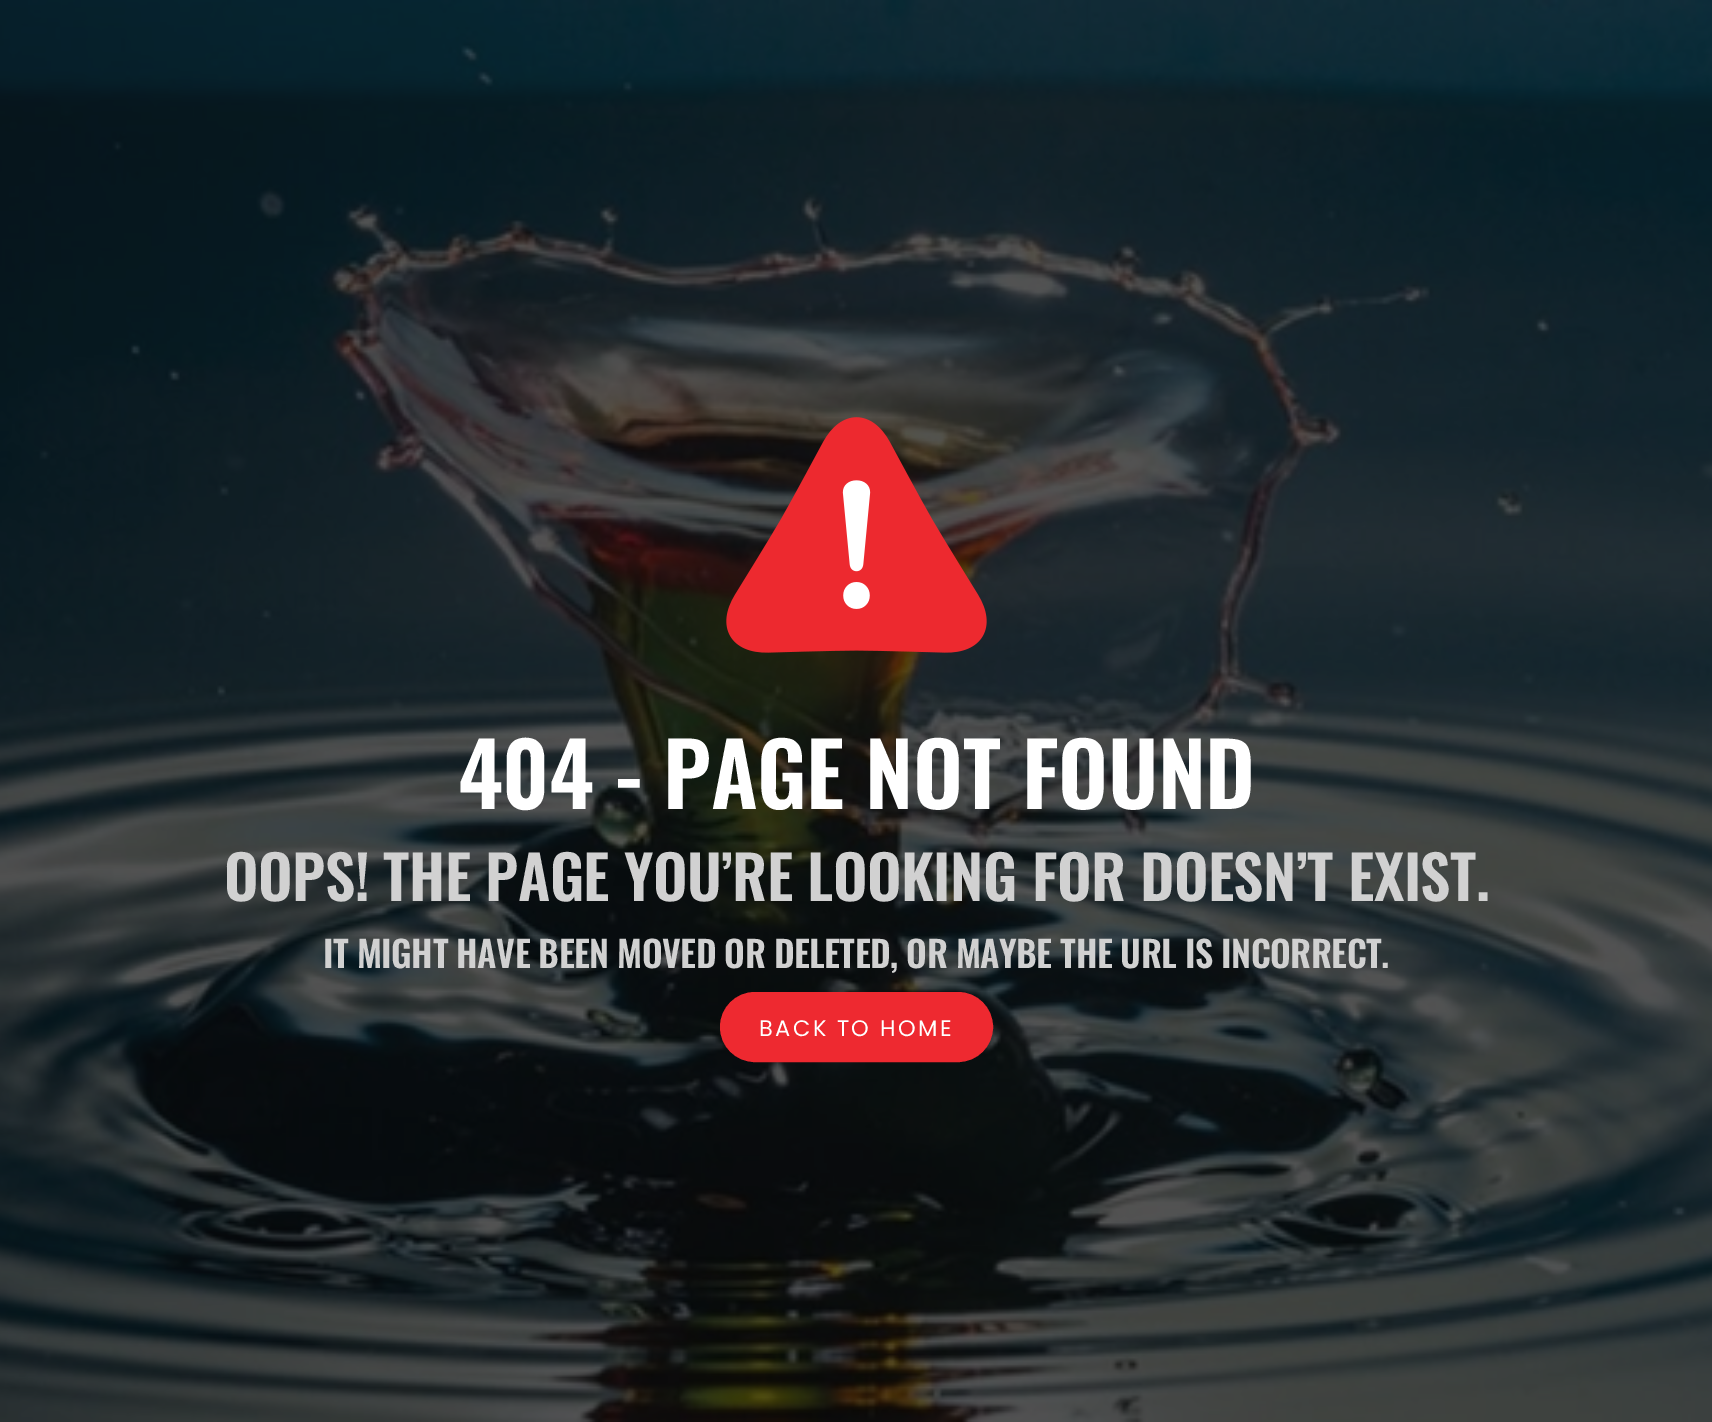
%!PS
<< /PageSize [1712 1422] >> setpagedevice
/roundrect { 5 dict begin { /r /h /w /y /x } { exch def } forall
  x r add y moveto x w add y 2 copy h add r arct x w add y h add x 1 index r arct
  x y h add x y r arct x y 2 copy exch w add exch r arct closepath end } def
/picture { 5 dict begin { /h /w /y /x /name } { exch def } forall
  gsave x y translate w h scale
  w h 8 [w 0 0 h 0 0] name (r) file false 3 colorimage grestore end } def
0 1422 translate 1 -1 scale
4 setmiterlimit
1 setgray
0 0 1712 1422 rectfill
(img1.rgb) 0 0 1712 1422 picture
(img2.rgb) 726 417 261 236 picture
/Oswald-SemiBold [87 0 0 -87 0 0] selectfont
458 809 moveto -0.48 0 (404 - PAGE NOT FOUND) ashow
/Oswald-SemiBold [60 0 0 -60 0 0] selectfont
0.82 setgray
224 901 moveto -0.48 0 (OOPS! THE PAGE YOU’RE LOOKING FOR DOESN’T EXIST.) ashow
/Oswald-SemiBold [36 0 0 -36 0 0] selectfont
323 968 moveto -0.48 0 (IT MIGHT HAVE BEEN MOVED OR DELETED, OR MAYBE THE URL IS INCORRECT.) ashow
0.933 0.161 0.188 setrgbcolor
721 993 271 68 34 roundrect gsave fill grestore
2 setlinewidth
stroke
/Poppins-Regular [22.5 0 0 -22.5 0 0] selectfont
1 setgray
759 1036 moveto 2.4 0 (BACK TO HOME) ashow
showpage
